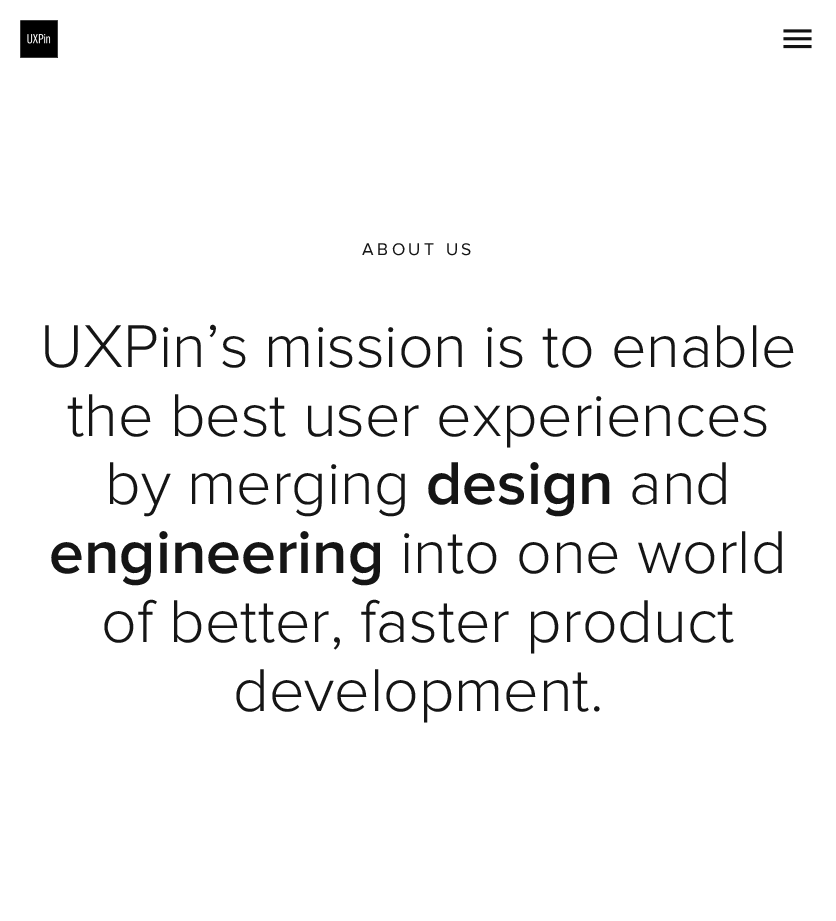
%!PS
<< /PageSize [836 921] >> setpagedevice
/picture { 5 dict begin { /h /w /y /x /name } { exch def } forall
  gsave x y translate w h scale
  w h 8 [w 0 0 h 0 0] name (r) file false 3 colorimage grestore end } def
0 921 translate 1 -1 scale
4 setmiterlimit
1 setgray
0 0 836 921 rectfill
0 setgray
20 20 38 38 rectfill
(img1.rgb) 20 20 38 38 picture
(img2.rgb) 783 29 29 20 picture
/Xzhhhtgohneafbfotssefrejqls-Regular [17.5 0 0 -17.5 0 0] selectfont
0.082 setgray
362 255 moveto 3.5 0 (ABOUT US) ashow
/ProximaNova-Light [62.5 0 0 -62.5 0 0] selectfont
40 367 moveto (UXPin’s mission is to enable) show
67 436 moveto (the best user experiences) show
105 504 moveto (by merging) show
/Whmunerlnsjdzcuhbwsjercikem-SemiBold [62.5 0 0 -62.5 0 0] selectfont
426 504 moveto (design) show
/ProximaNova-Light [62.5 0 0 -62.5 0 0] selectfont
629 504 moveto (and) show
/Whmunerlnsjdzcuhbwsjercikem-SemiBold [62.5 0 0 -62.5 0 0] selectfont
49 573 moveto (engineering) show
/ProximaNova-Light [62.5 0 0 -62.5 0 0] selectfont
400 573 moveto (into one world) show
101 642 moveto (of better, faster product) show
233 711 moveto (development.) show
showpage
